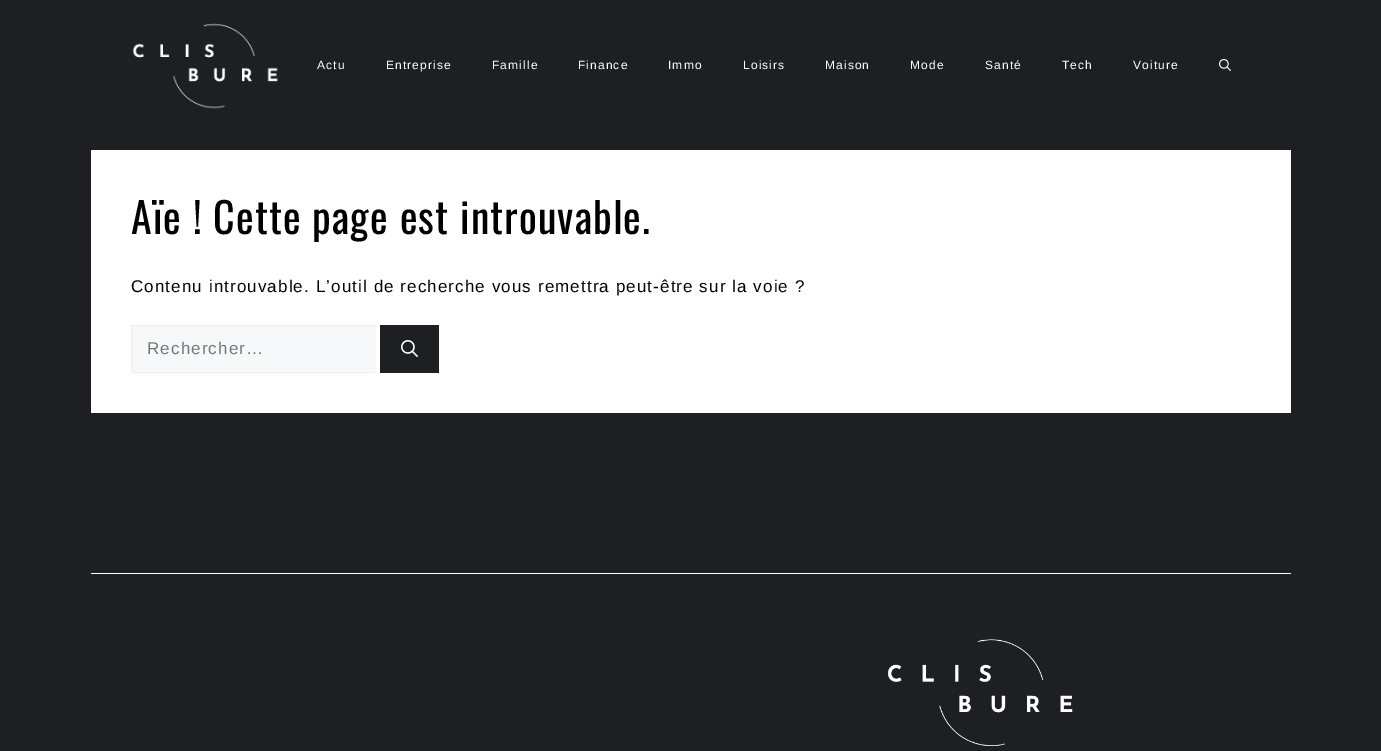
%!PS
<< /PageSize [1381 751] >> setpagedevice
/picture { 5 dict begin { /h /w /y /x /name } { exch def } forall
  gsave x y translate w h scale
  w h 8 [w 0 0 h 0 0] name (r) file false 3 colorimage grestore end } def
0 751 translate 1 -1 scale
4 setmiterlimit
0.114 0.122 0.137 setrgbcolor
0 0 1381 751 rectfill
(img1.rgb) 132 23 146 86 picture
/LiberationSans-Regular [12 0 0 -12 0 0] selectfont
1 setgray
317 69 moveto 1.1 0 (Actu) ashow
386 69 moveto 1.1 0 (Entreprise) ashow
492 69 moveto 1.1 0 (Famille) ashow
578 69 moveto 1.1 0 (Finance) ashow
668 69 moveto 1.1 0 (Immo) ashow
743 69 moveto 1.1 0 (Loisirs) ashow
825 69 moveto 1.1 0 (Maison) ashow
910 69 moveto 1.1 0 (Mode) ashow
985 69 moveto 1.1 0 (Santé) ashow
1062 69 moveto 1.1 0 (Tech) ashow
1133 69 moveto 1.1 0 (Voiture) ashow
(img2.rgb) 1219 59 12 12 picture
91 150 1200 263 rectfill
/Oswald-Regular [42 0 0 -42 0 0] selectfont
0 setgray
131 234 moveto 1.1 0 (Aïe ! Cette page est introuvable.) ashow
/LiberationSans-Regular [17 0 0 -17 0 0] selectfont
131 292 moveto 1.1 0 (Contenu introuvable. L’outil de recherche vous remettra peut-être sur la voie ?) ashow
0.969 0.973 0.976 setrgbcolor
newpath 131.5 325.5 moveto 374.5 325.5 lineto 374.5 372.5 lineto 131.5 372.5 lineto closepath gsave fill grestore
0.941 setgray
stroke
0.459 setgray
147 354 moveto 1.1 0 (Rechercher…) ashow
0.114 0.122 0.137 setrgbcolor
380 325 59 48 rectfill
(img3.rgb) 401 340 17 17 picture
1 setgray
91 573 1200 1 rectfill
(img4.rgb) 888 639 185 107 picture
showpage
